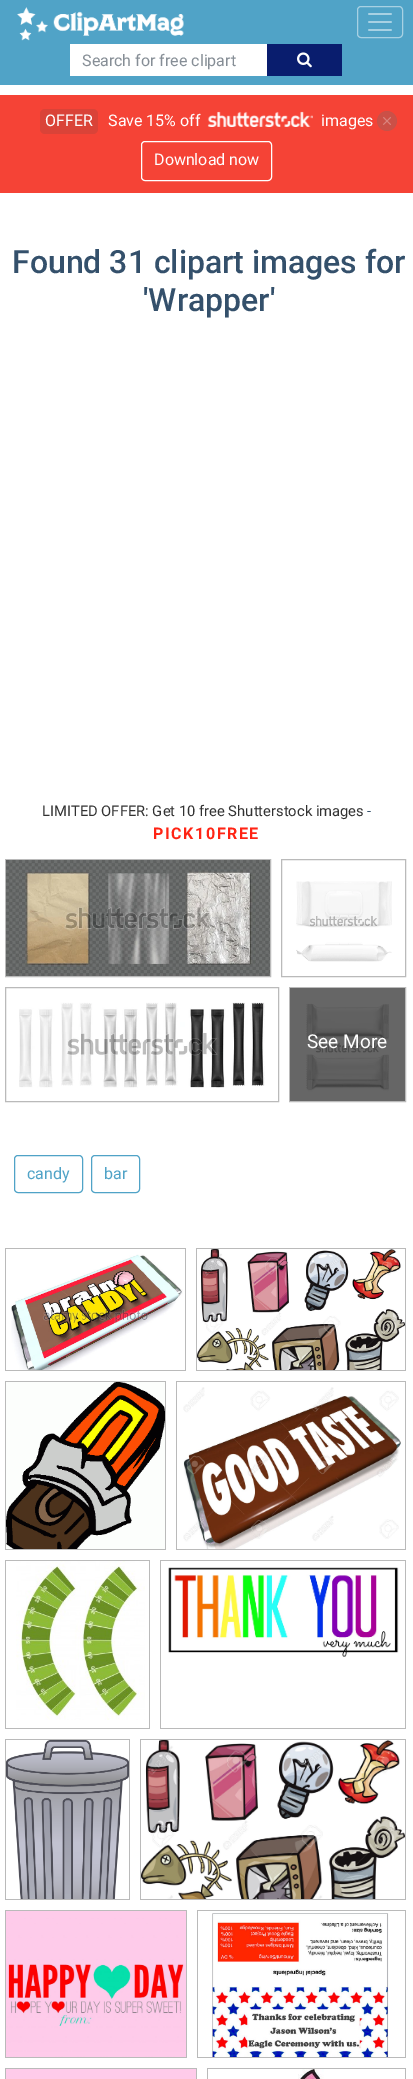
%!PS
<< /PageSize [413 2079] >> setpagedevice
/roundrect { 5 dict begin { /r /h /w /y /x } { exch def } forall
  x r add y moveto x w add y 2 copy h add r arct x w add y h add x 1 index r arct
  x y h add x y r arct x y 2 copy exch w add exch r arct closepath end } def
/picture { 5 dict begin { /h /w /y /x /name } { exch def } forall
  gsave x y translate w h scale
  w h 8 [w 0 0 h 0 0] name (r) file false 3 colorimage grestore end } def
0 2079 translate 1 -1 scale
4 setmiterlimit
1 setgray
0 0 413 2079 rectfill
0.314 0.639 0.78 setrgbcolor
0 0 413 85 rectfill
0.659 0.82 0.89 setrgbcolor
357.5 6.5 45 31 3.5 roundrect stroke
(img1.rgb) 368 13 24 18 picture
(img2.rgb) 17 7 167 34 picture
1 setgray
70 44 197 32 rectfill
/Roboto-Regular [16 0 0 -16 0 0] selectfont
0.525 0.557 0.588 setrgbcolor
82 66 moveto (Search for free clipart) show
0.035 0.114 0.431 setrgbcolor
267 44 75 32 rectfill
(img3.rgb) 297 52 15 16 picture
0.961 0.263 0.212 setrgbcolor
0 95 413 98 rectfill
0.855 0.263 0.22 setrgbcolor
40 109 58 25 5 roundrect fill
1 setgray
45 126 moveto (OFFER) show
108 126 moveto (Save 15% off) show
(img4.rgb) 207 111 106 16 picture
321 126 moveto (images) show
141.5 141.5 130 39 3.5 roundrect stroke
154 165 moveto (Download now) show
(img5.rgb) 377 111 20 20 picture
/Roboto-Medium [32 0 0 -32 0 0] selectfont
0.204 0.314 0.42 setrgbcolor
12 273 moveto (Found 31 clipart images for) show
143 311 moveto ('Wrapper') show
/Roboto-Regular [14.75 0 0 -14.75 0 0] selectfont
0.196 setgray
42 816 moveto (LIMITED OFFER: Get 10 free Shutterstock images) show
0.204 0.314 0.42 setrgbcolor
367 816 moveto (-) show
/Roboto-Bold [16 0 0 -16 0 0] selectfont
1 0.141 0.078 setrgbcolor
153 839 moveto 1.6 0 (PICK10FREE) ashow
0.729 setgray
5.5 859.5 265 117 rectstroke
(img6.rgb) 6 860 264 116 picture
281.5 859.5 124 117 rectstroke
(img7.rgb) 296 881 96 81 picture
5.5 987.5 273 114 rectstroke
(img8.rgb) 19 1002 246 86 picture
289.5 987.5 116 114 rectstroke
0 setgray
290 988 115 113 rectfill
(img9.rgb) 290 988 115 113 picture
/Roboto-Regular [19 0 0 -19 0 0] selectfont
1 setgray
307 1048 moveto (See More) show
0.314 0.639 0.78 setrgbcolor
14.5 1155.5 68 37 3.5 roundrect stroke
/Roboto-Regular [16 0 0 -16 0 0] selectfont
27 1179 moveto (candy) show
91.5 1155.5 48 37 3.5 roundrect stroke
104 1179 moveto (bar) show
0.729 setgray
5 1370 181 1 rectfill
5 1248 181 1 rectfill
185 1248 1 122 rectfill
5 1248 1 122 rectfill
(img10.rgb) 11 1254 172 116 picture
196 1370 210 1 rectfill
196 1248 210 1 rectfill
405 1248 1 122 rectfill
196 1248 1 122 rectfill
(img11.rgb) 197 1249 208 121 picture
5 1549 161 1 rectfill
5 1381 161 1 rectfill
165 1381 1 168 rectfill
5 1381 1 168 rectfill
(img12.rgb) 6 1382 159 167 picture
176 1549 230 1 rectfill
176 1381 230 1 rectfill
405 1381 1 168 rectfill
176 1381 1 168 rectfill
(img13.rgb) 183 1387 218 162 picture
5 1728 145 1 rectfill
5 1560 145 1 rectfill
149 1560 1 168 rectfill
5 1560 1 168 rectfill
(img14.rgb) 16 1561 129 159 picture
160 1728 246 1 rectfill
160 1560 246 1 rectfill
405 1560 1 168 rectfill
160 1560 1 168 rectfill
(img15.rgb) 168 1567 231 90 picture
5 1899 125 1 rectfill
5 1739 125 1 rectfill
129 1739 1 160 rectfill
5 1739 1 160 rectfill
(img16.rgb) 6 1740 123 159 picture
140 1899 266 1 rectfill
140 1739 266 1 rectfill
405 1739 1 160 rectfill
140 1739 1 160 rectfill
(img17.rgb) 141 1740 264 159 picture
5 2057 182 1 rectfill
5 1910 182 1 rectfill
186 1910 1 147 rectfill
5 1910 1 147 rectfill
(img18.rgb) 6 1911 180 146 picture
197 2057 209 1 rectfill
197 1910 209 1 rectfill
405 1910 1 147 rectfill
197 1910 1 147 rectfill
(img19.rgb) 212 1913 177 144 picture
5 2068 192 1 rectfill
196 2068 1 11 rectfill
5 2068 1 11 rectfill
0.996 0.796 0.918 setrgbcolor
6 2069 190 10 rectfill
0.729 setgray
207 2068 199 1 rectfill
405 2068 1 11 rectfill
207 2068 1 11 rectfill
(img20.rgb) 298 2069 26 10 picture
showpage
